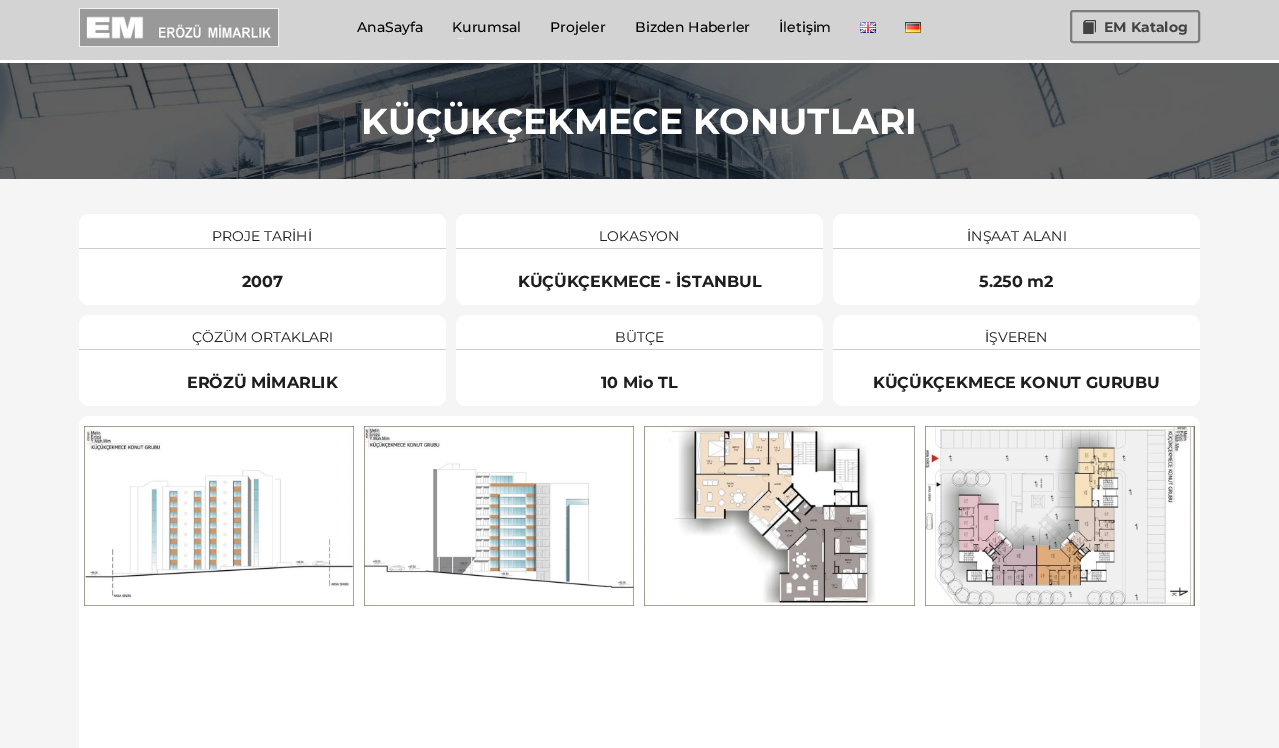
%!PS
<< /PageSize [1279 748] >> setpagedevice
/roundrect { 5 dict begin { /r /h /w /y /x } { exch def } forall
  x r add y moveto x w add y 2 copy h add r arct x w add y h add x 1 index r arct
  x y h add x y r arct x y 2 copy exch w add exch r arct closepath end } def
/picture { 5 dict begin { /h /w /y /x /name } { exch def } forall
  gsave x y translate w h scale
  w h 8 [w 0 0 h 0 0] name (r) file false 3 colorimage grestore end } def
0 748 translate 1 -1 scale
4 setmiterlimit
0.961 setgray
0 0 1279 748 rectfill
0.827 setgray
0 0 1279 60 rectfill
(img1.rgb) 79 8 200 39 picture
/Montserrat-Medium [14 0 0 -14 0 0] selectfont
0 setgray
357 32 moveto (AnaSayfa) show
452 32 moveto (Kurumsal) show
0.898 setgray
457 38 7 1 rectfill
0 setgray
550 32 moveto (Projeler) show
635 32 moveto (Bizden Haberler) show
779 32 moveto (İletişim) show
(img2.rgb) 860 22 16 11 picture
(img3.rgb) 905 22 16 11 picture
0.486 setgray
2 setlinewidth
1071 11 128 31 2 roundrect stroke
(img4.rgb) 1083 20 13 14 picture
/Montserrat-Bold [14 0 0 -14 0 0] selectfont
0.259 setgray
1104 32 moveto (EM Katalog) show
1 setgray
0 60 1279 3 rectfill
(img5.rgb) 0 63 1279 116 picture
/Montserrat-Bold [36 0 0 -36 0 0] selectfont
361 134 moveto (KÜÇÜKÇEKMECE KONUTLARI) show
79 214 367 91 10 roundrect fill
/Montserrat-Regular [14 0 0 -14 0 0] selectfont
0.118 setgray
212 241 moveto (PROJE TARİHİ) show
0.8 setgray
79 248 367 1 rectfill
/Montserrat-Bold [16 0 0 -16 0 0] selectfont
0.118 setgray
242 287 moveto (2007) show
1 setgray
456 214 367 91 10 roundrect fill
/Montserrat-Regular [14 0 0 -14 0 0] selectfont
0.118 setgray
599 241 moveto (LOKASYON) show
0.8 setgray
456 248 367 1 rectfill
/Montserrat-Bold [16 0 0 -16 0 0] selectfont
0.118 setgray
518 287 moveto (KÜÇÜKÇEKMECE - İSTANBUL) show
1 setgray
833 214 367 91 10 roundrect fill
/Montserrat-Regular [14 0 0 -14 0 0] selectfont
0.118 setgray
967 241 moveto (İNŞAAT ALANI) show
0.8 setgray
833 248 367 1 rectfill
/Montserrat-Bold [16 0 0 -16 0 0] selectfont
0.118 setgray
979 287 moveto (5.250 m2) show
1 setgray
79 315 367 91 10 roundrect fill
/Montserrat-Regular [14 0 0 -14 0 0] selectfont
0.118 setgray
192 342 moveto (ÇÖZÜM ORTAKLARI) show
0.8 setgray
79 349 367 1 rectfill
/Montserrat-Bold [16 0 0 -16 0 0] selectfont
0.118 setgray
187 388 moveto (ERÖZÜ MİMARLIK) show
1 setgray
456 315 367 91 10 roundrect fill
/Montserrat-Regular [14 0 0 -14 0 0] selectfont
0.118 setgray
615 342 moveto (BÜTÇE) show
0.8 setgray
456 349 367 1 rectfill
/Montserrat-Bold [16 0 0 -16 0 0] selectfont
0.118 setgray
601 388 moveto (10 Mio TL) show
1 setgray
833 315 367 91 10 roundrect fill
/Montserrat-Regular [14 0 0 -14 0 0] selectfont
0.118 setgray
985 342 moveto (İŞVEREN) show
0.8 setgray
833 349 367 1 rectfill
/Montserrat-Bold [16 0 0 -16 0 0] selectfont
0.118 setgray
873 388 moveto (KÜÇÜKÇEKMECE KONUT GURUBU) show
1 setgray
79 416 1121 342 10 roundrect fill
(img6.rgb) 84 426 270 180 picture
(img7.rgb) 364 426 270 180 picture
(img8.rgb) 644 426 271 180 picture
(img9.rgb) 925 426 270 180 picture
showpage
